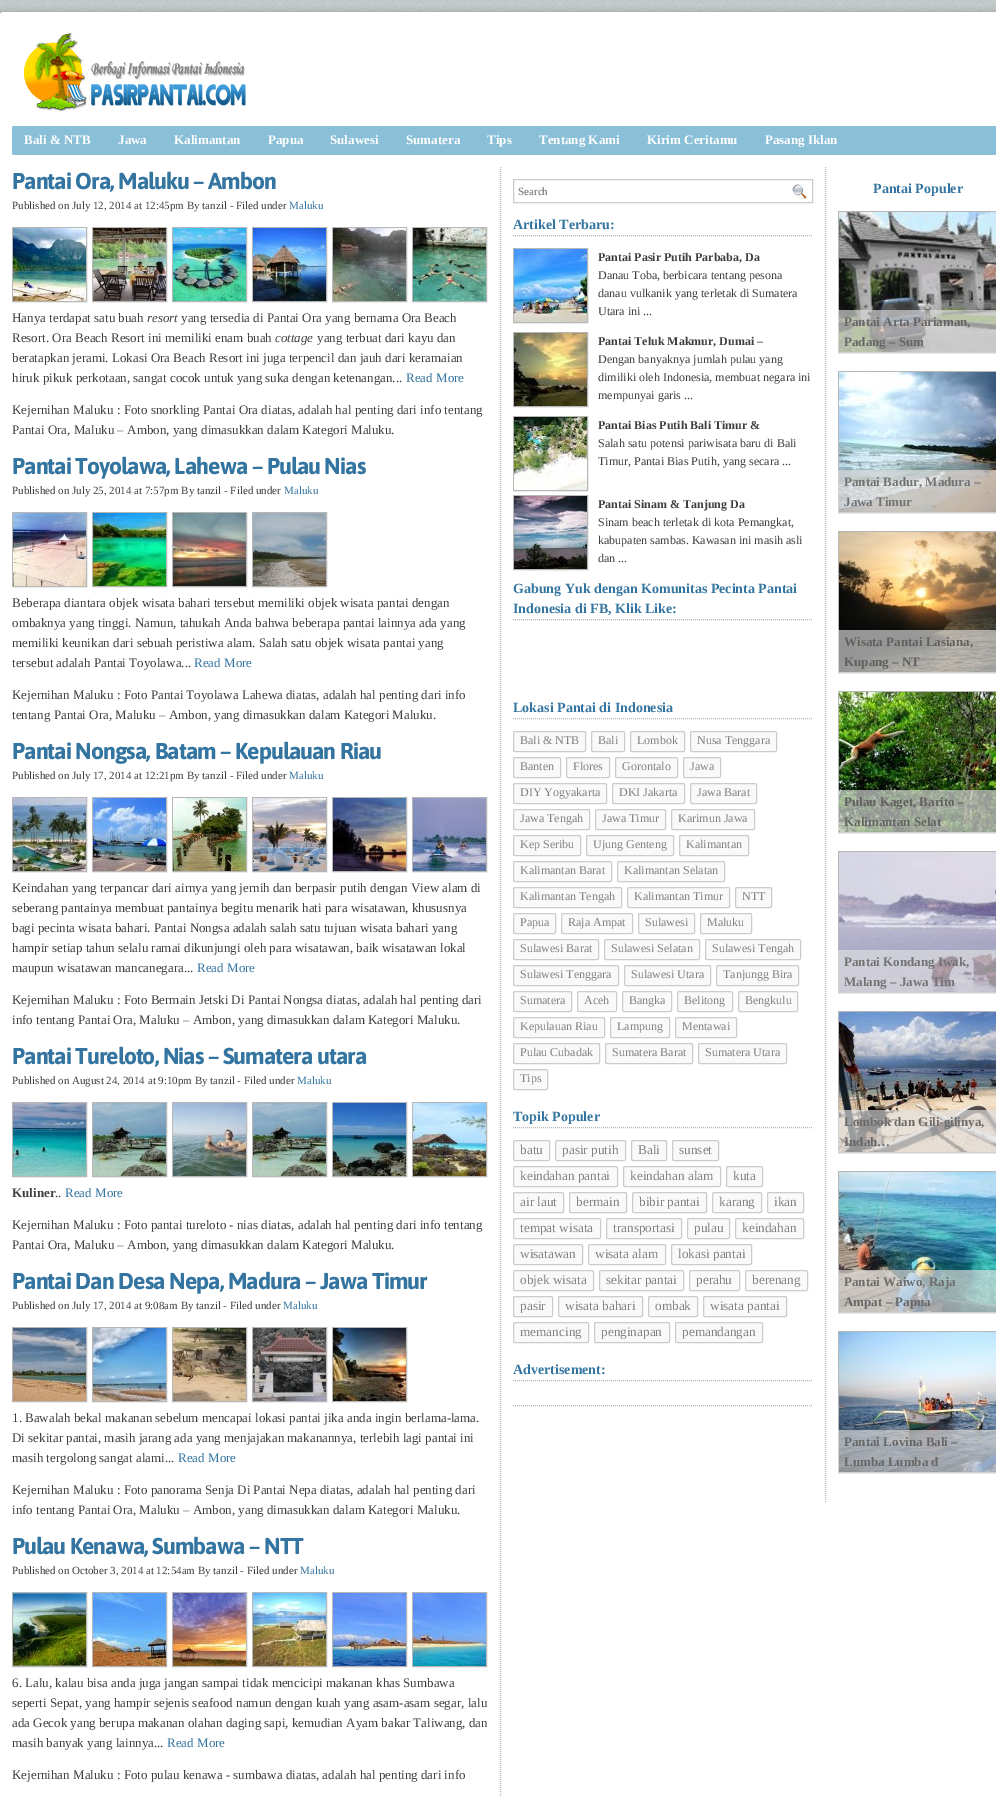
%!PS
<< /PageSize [996 1796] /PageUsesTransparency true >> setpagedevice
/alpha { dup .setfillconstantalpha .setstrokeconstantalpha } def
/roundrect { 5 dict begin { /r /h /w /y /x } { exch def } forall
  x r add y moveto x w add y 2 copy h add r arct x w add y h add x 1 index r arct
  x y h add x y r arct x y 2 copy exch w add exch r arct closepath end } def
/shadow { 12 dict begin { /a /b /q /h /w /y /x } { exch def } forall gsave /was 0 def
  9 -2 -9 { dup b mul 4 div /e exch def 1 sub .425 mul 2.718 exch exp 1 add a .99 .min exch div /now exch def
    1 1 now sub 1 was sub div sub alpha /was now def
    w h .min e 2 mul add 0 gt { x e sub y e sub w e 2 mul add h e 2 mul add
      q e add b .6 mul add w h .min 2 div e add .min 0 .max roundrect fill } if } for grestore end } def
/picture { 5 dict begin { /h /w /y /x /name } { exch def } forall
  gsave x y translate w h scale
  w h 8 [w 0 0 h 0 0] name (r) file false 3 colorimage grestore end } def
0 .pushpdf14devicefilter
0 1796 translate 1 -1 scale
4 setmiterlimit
1 setgray
0 0 996 1796 rectfill
(img1.rgb) 0 0 996 15 picture
0.2 setgray
0 17 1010 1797 3 5 1 shadow
1 setgray
newpath 3 12 moveto 996 12 lineto 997.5 12 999 13.5 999 15 curveto 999 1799 lineto 0 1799 lineto 0 15 lineto 0 13.5 1.5 12 3 12 curveto closepath fill
(img2.rgb) 24 33 222 79 picture
(img3.rgb) 24 33 222 79 picture
0.537 0.749 0.843 setrgbcolor
12 126 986 29 2 roundrect fill
/LiberationSerif-Bold [13 0 0 -13 0 0] selectfont
1 setgray
24 144 moveto (Bali & NTB) show
118 144 moveto (Jawa) show
174 144 moveto (Kalimantan) show
268 144 moveto (Papua) show
330 144 moveto (Sulawesi) show
406 144 moveto (Sumatera) show
487 144 moveto (Tips) show
539 144 moveto (Tentang Kami) show
647 144 moveto (Kirim Ceritamu) show
765 144 moveto (Pasang Iklan) show
0.718 setgray
[1 1] 0 setdash
newpath 500.5 167 moveto 500.5 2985 lineto stroke
/Asap-Bold [23 0 0 -23 0 0] selectfont
0.2 0.455 0.627 setrgbcolor
12 189 moveto -1 0 (Pantai Ora, Maluku – Ambon) ashow
/LiberationSerif-Regular [11 0 0 -11 0 0] selectfont
0.243 setgray
12 209 moveto (Published on July 12, 2014 at 12:45pm By tanzil - Filed under) show
0.2 0.455 0.627 setrgbcolor
289 209 moveto (Maluku) show
0.718 setgray
[] 0 setdash
12.5 227.5 74 74 rectstroke
92.5 227.5 74 74 rectstroke
172.5 227.5 74 74 rectstroke
252.5 227.5 74 74 rectstroke
332.5 227.5 74 74 rectstroke
412.5 227.5 74 74 rectstroke
(img4.rgb) 13 228 73 73 picture
(img5.rgb) 93 228 73 73 picture
(img6.rgb) 173 228 73 73 picture
(img7.rgb) 253 228 73 73 picture
(img8.rgb) 333 228 73 73 picture
(img9.rgb) 413 228 73 73 picture
/LiberationSerif-Regular [13 0 0 -13 0 0] selectfont
0.243 setgray
12 322 moveto (Hanya terdapat satu buah) show
/LiberationSerif-Italic [13 0 0 -13 0 0] selectfont
147 322 moveto (resort) show
/LiberationSerif-Regular [13 0 0 -13 0 0] selectfont
181 322 moveto (yang tersedia di Pantai Ora yang bernama Ora Beach) show
12 342 moveto (Resort. Ora Beach Resort ini memiliki enam buah) show
/LiberationSerif-Italic [13 0 0 -13 0 0] selectfont
275 342 moveto (cottage) show
/LiberationSerif-Regular [13 0 0 -13 0 0] selectfont
317 342 moveto (yang terbuat dari kayu dan) show
12 362 moveto (beratapkan jerami. Lokasi Ora Beach Resort ini juga terpencil dan jauh dari keramaian) show
12 382 moveto (hiruk pikuk perkotaan, sangat cocok untuk yang suka dengan ketenangan...) show
0.2 0.455 0.627 setrgbcolor
406 382 moveto (Read More) show
0.243 setgray
12 414 moveto (Kejernihan Maluku : Foto snorkling Pantai Ora diatas, adalah hal penting dari info tentang) show
12 434 moveto (Pantai Ora, Maluku – Ambon, yang dimasukkan dalam Kategori Maluku.) show
/Asap-Bold [23 0 0 -23 0 0] selectfont
0.2 0.455 0.627 setrgbcolor
12 474 moveto -1 0 (Pantai Toyolawa, Lahewa – Pulau Nias) ashow
/LiberationSerif-Regular [11 0 0 -11 0 0] selectfont
0.243 setgray
12 494 moveto (Published on July 25, 2014 at 7:57pm By tanzil - Filed under) show
0.2 0.455 0.627 setrgbcolor
284 494 moveto (Maluku) show
0.718 setgray
12.5 512.5 74 74 rectstroke
92.5 512.5 74 74 rectstroke
172.5 512.5 74 74 rectstroke
252.5 512.5 74 74 rectstroke
(img10.rgb) 13 513 73 73 picture
(img11.rgb) 93 513 73 73 picture
(img12.rgb) 173 513 73 73 picture
(img13.rgb) 253 513 73 73 picture
/LiberationSerif-Regular [13 0 0 -13 0 0] selectfont
0.243 setgray
12 607 moveto (Beberapa diantara objek wisata bahari tersebut memiliki objek wisata pantai dengan) show
12 627 moveto (ombaknya yang tinggi. Namun, tahukah Anda bahwa beberapa pantai lainnya ada yang) show
12 647 moveto (memiliki keunikan dari sebuah peristiwa alam. Salah satu objek wisata pantai yang) show
12 667 moveto (tersebut adalah Pantai Toyolawa...) show
0.2 0.455 0.627 setrgbcolor
194 667 moveto (Read More) show
0.243 setgray
12 699 moveto (Kejernihan Maluku : Foto Pantai Toyolawa Lahewa diatas, adalah hal penting dari info) show
12 719 moveto (tentang Pantai Ora, Maluku – Ambon, yang dimasukkan dalam Kategori Maluku.) show
/Asap-Bold [23 0 0 -23 0 0] selectfont
0.2 0.455 0.627 setrgbcolor
12 759 moveto -1 0 (Pantai Nongsa, Batam – Kepulauan Riau) ashow
/LiberationSerif-Regular [11 0 0 -11 0 0] selectfont
0.243 setgray
12 779 moveto (Published on July 17, 2014 at 12:21pm By tanzil - Filed under) show
0.2 0.455 0.627 setrgbcolor
289 779 moveto (Maluku) show
0.718 setgray
12.5 797.5 74 74 rectstroke
92.5 797.5 74 74 rectstroke
172.5 797.5 74 74 rectstroke
252.5 797.5 74 74 rectstroke
332.5 797.5 74 74 rectstroke
412.5 797.5 74 74 rectstroke
(img14.rgb) 13 798 73 73 picture
(img15.rgb) 93 798 73 73 picture
(img16.rgb) 173 798 73 73 picture
(img17.rgb) 253 798 73 73 picture
(img18.rgb) 333 798 73 73 picture
(img19.rgb) 413 798 73 73 picture
/LiberationSerif-Regular [13 0 0 -13 0 0] selectfont
0.243 setgray
12 892 moveto (Keindahan yang terpancar dari airnya yang jernih dan berpasir putih dengan View alam di) show
12 912 moveto (seberang pantainya membuat pantainya begitu menarik hati para wisatawan, khususnya) show
12 932 moveto (bagi pecinta wisata bahari. Pantai Nongsa adalah salah satu tujuan wisata bahari yang) show
12 952 moveto (hampir setiap tahun selalu ramai dikunjungi oleh para wisatawan, baik wisatawan lokal) show
12 972 moveto (maupun wisatawan mancanegara...) show
0.2 0.455 0.627 setrgbcolor
197 972 moveto (Read More) show
0.243 setgray
12 1004 moveto (Kejernihan Maluku : Foto Bermain Jetski Di Pantai Nongsa diatas, adalah hal penting dari) show
12 1024 moveto (info tentang Pantai Ora, Maluku – Ambon, yang dimasukkan dalam Kategori Maluku.) show
/Asap-Bold [23 0 0 -23 0 0] selectfont
0.2 0.455 0.627 setrgbcolor
12 1064 moveto -1 0 (Pantai Tureloto, Nias – Sumatera utara) ashow
/LiberationSerif-Regular [11 0 0 -11 0 0] selectfont
0.243 setgray
12 1084 moveto (Published on August 24, 2014 at 9:10pm By tanzil - Filed under) show
0.2 0.455 0.627 setrgbcolor
297 1084 moveto (Maluku) show
0.718 setgray
12.5 1102.5 74 74 rectstroke
92.5 1102.5 74 74 rectstroke
172.5 1102.5 74 74 rectstroke
252.5 1102.5 74 74 rectstroke
332.5 1102.5 74 74 rectstroke
412.5 1102.5 74 74 rectstroke
(img20.rgb) 13 1103 73 73 picture
(img21.rgb) 93 1103 73 73 picture
(img22.rgb) 173 1103 73 73 picture
(img23.rgb) 253 1103 73 73 picture
(img24.rgb) 333 1103 73 73 picture
(img25.rgb) 413 1103 73 73 picture
/LiberationSerif-Bold [13 0 0 -13 0 0] selectfont
0.243 setgray
12 1197 moveto (Kuliner) show
/LiberationSerif-Regular [13 0 0 -13 0 0] selectfont
55 1197 moveto (..) show
0.2 0.455 0.627 setrgbcolor
65 1197 moveto (Read More) show
0.243 setgray
12 1229 moveto (Kejernihan Maluku : Foto pantai tureloto - nias diatas, adalah hal penting dari info tentang) show
12 1249 moveto (Pantai Ora, Maluku – Ambon, yang dimasukkan dalam Kategori Maluku.) show
/Asap-Bold [23 0 0 -23 0 0] selectfont
0.2 0.455 0.627 setrgbcolor
12 1289 moveto -1 0 (Pantai Dan Desa Nepa, Madura – Jawa Timur) ashow
/LiberationSerif-Regular [11 0 0 -11 0 0] selectfont
0.243 setgray
12 1309 moveto (Published on July 17, 2014 at 9:08am By tanzil - Filed under) show
0.2 0.455 0.627 setrgbcolor
283 1309 moveto (Maluku) show
0.718 setgray
12.5 1327.5 74 74 rectstroke
92.5 1327.5 74 74 rectstroke
172.5 1327.5 74 74 rectstroke
252.5 1327.5 74 74 rectstroke
332.5 1327.5 74 74 rectstroke
(img26.rgb) 13 1328 73 73 picture
(img27.rgb) 93 1328 73 73 picture
(img28.rgb) 173 1328 73 73 picture
(img29.rgb) 253 1328 73 73 picture
(img30.rgb) 333 1328 73 73 picture
/LiberationSerif-Regular [13 0 0 -13 0 0] selectfont
0.243 setgray
12 1422 moveto (1. Bawalah bekal makanan sebelum mencapai lokasi pantai jika anda ingin berlama-lama.) show
12 1442 moveto (Di sekitar pantai, masih jarang ada yang menjajakan makanannya, terlebih lagi pantai ini) show
12 1462 moveto (masih tergolong sangat alami...) show
0.2 0.455 0.627 setrgbcolor
178 1462 moveto (Read More) show
0.243 setgray
12 1494 moveto (Kejernihan Maluku : Foto panorama Senja Di Pantai Nepa diatas, adalah hal penting dari) show
12 1514 moveto (info tentang Pantai Ora, Maluku – Ambon, yang dimasukkan dalam Kategori Maluku.) show
/Asap-Bold [23 0 0 -23 0 0] selectfont
0.2 0.455 0.627 setrgbcolor
12 1554 moveto -1 0 (Pulau Kenawa, Sumbawa – NTT) ashow
/LiberationSerif-Regular [11 0 0 -11 0 0] selectfont
0.243 setgray
12 1574 moveto (Published on October 3, 2014 at 12:54am By tanzil - Filed under) show
0.2 0.455 0.627 setrgbcolor
300 1574 moveto (Maluku) show
0.718 setgray
12.5 1592.5 74 74 rectstroke
92.5 1592.5 74 74 rectstroke
172.5 1592.5 74 74 rectstroke
252.5 1592.5 74 74 rectstroke
332.5 1592.5 74 74 rectstroke
412.5 1592.5 74 74 rectstroke
(img31.rgb) 13 1593 73 73 picture
(img32.rgb) 93 1593 73 73 picture
(img33.rgb) 173 1593 73 73 picture
(img34.rgb) 253 1593 73 73 picture
(img35.rgb) 333 1593 73 73 picture
(img36.rgb) 413 1593 73 73 picture
/LiberationSerif-Regular [13 0 0 -13 0 0] selectfont
0.243 setgray
12 1687 moveto (6. Lalu, kalau bisa anda juga jangan sampai tidak mencicipi makanan khas Sumbawa) show
12 1707 moveto (seperti Sepat, yang hampir sejenis seafood namun dengan kuah yang asam-asam segar, lalu) show
12 1727 moveto (ada Gecok yang berupa makanan olahan daging sapi, kemudian Ayam bakar Taliwang, dan) show
12 1747 moveto (masih banyak yang lainnya...) show
0.2 0.455 0.627 setrgbcolor
167 1747 moveto (Read More) show
0.243 setgray
12 1779 moveto (Kejernihan Maluku : Foto pulau kenawa - sumbawa diatas, adalah hal penting dari info) show
0.8 setgray
513.5 179.5 299 23 rectstroke
/LiberationSerif-Regular [11 0 0 -11 0 0] selectfont
0.4 setgray
518 195 moveto (Search) show
(img37.rgb) 792 184 15 15 picture
0.718 setgray
[1 1] 0 setdash
newpath 513 235.5 moveto 813 235.5 lineto stroke
/LiberationSerif-Bold [14 0 0 -14 0 0] selectfont
0.2 0.455 0.627 setrgbcolor
513 229 moveto (Artikel Terbaru:) show
0.718 setgray
[] 0 setdash
513.5 248.5 74 74 rectstroke
(img38.rgb) 514 249 73 73 picture
/LiberationSerif-Bold [12 0 0 -12 0 0] selectfont
0.243 setgray
598 261 moveto (Pantai Pasir Putih Parbaba, Da) show
/LiberationSerif-Regular [12 0 0 -12 0 0] selectfont
598 279 moveto (Danau Toba, berbicara tentang pesona) show
598 297 moveto (danau vulkanik yang terletak di Sumatera) show
598 315 moveto (Utara ini ...) show
0.718 setgray
513.5 332.5 74 74 rectstroke
(img39.rgb) 514 333 73 73 picture
/LiberationSerif-Bold [12 0 0 -12 0 0] selectfont
0.243 setgray
598 345 moveto (Pantai Teluk Makmur, Dumai –) show
/LiberationSerif-Regular [12 0 0 -12 0 0] selectfont
598 363 moveto (Dengan banyaknya jumlah pulau yang) show
598 381 moveto (dimiliki oleh Indonesia, membuat negara ini) show
598 399 moveto (mempunyai garis ...) show
0.718 setgray
513.5 416.5 74 74 rectstroke
(img40.rgb) 514 417 73 73 picture
/LiberationSerif-Bold [12 0 0 -12 0 0] selectfont
0.243 setgray
598 429 moveto (Pantai Bias Putih Bali Timur &) show
/LiberationSerif-Regular [12 0 0 -12 0 0] selectfont
598 447 moveto (Salah satu potensi pariwisata baru di Bali) show
598 465 moveto (Timur, Pantai Bias Putih, yang secara ...) show
0.718 setgray
513.5 495.5 74 74 rectstroke
(img41.rgb) 514 496 73 73 picture
/LiberationSerif-Bold [12 0 0 -12 0 0] selectfont
0.243 setgray
598 508 moveto (Pantai Sinam & Tanjung Da) show
/LiberationSerif-Regular [12 0 0 -12 0 0] selectfont
598 526 moveto (Sinam beach terletak di kota Pemangkat,) show
598 544 moveto (kabupaten sambas. Kawasan ini masih asli) show
598 562 moveto (dan ...) show
0.718 setgray
[1 1] 0 setdash
newpath 513 619.5 moveto 813 619.5 lineto stroke
/LiberationSerif-Bold [14 0 0 -14 0 0] selectfont
0.2 0.455 0.627 setrgbcolor
513 593 moveto (Gabung Yuk dengan Komunitas Pecinta Pantai) show
513 613 moveto (Indonesia di FB, Klik Like:) show
0.718 setgray
newpath 513 718.5 moveto 813 718.5 lineto stroke
0.2 0.455 0.627 setrgbcolor
513 712 moveto (Lokasi Pantai di Indonesia) show
0.976 setgray
513.5 731.5 72 20 1.5 roundrect gsave fill grestore
0.8 setgray
[] 0 setdash
stroke
/LiberationSerif-Regular [12 0 0 -12 0 0] selectfont
0.514 0.51 0.51 setrgbcolor
520 744 moveto (Bali & NTB) show
0.976 setgray
591.5 731.5 33 20 1.5 roundrect gsave fill grestore
0.8 setgray
stroke
0.514 0.51 0.51 setrgbcolor
598 744 moveto (Bali) show
0.976 setgray
630.5 731.5 54 20 1.5 roundrect gsave fill grestore
0.8 setgray
stroke
0.514 0.51 0.51 setrgbcolor
637 744 moveto (Lombok) show
0.976 setgray
690.5 731.5 86 20 1.5 roundrect gsave fill grestore
0.8 setgray
stroke
0.514 0.51 0.51 setrgbcolor
697 744 moveto (Nusa Tenggara) show
0.976 setgray
513.5 757.5 47 20 1.5 roundrect gsave fill grestore
0.8 setgray
stroke
0.514 0.51 0.51 setrgbcolor
520 770 moveto (Banten) show
0.976 setgray
566.5 757.5 43 20 1.5 roundrect gsave fill grestore
0.8 setgray
stroke
0.514 0.51 0.51 setrgbcolor
573 770 moveto (Flores) show
0.976 setgray
615.5 757.5 62 20 1.5 roundrect gsave fill grestore
0.8 setgray
stroke
0.514 0.51 0.51 setrgbcolor
622 770 moveto (Gorontalo) show
0.976 setgray
683.5 757.5 37 20 1.5 roundrect gsave fill grestore
0.8 setgray
stroke
0.514 0.51 0.51 setrgbcolor
690 770 moveto (Jawa) show
0.976 setgray
513.5 783.5 93 20 1.5 roundrect gsave fill grestore
0.8 setgray
stroke
0.514 0.51 0.51 setrgbcolor
520 796 moveto (DIY Yogyakarta) show
0.976 setgray
612.5 783.5 72 20 1.5 roundrect gsave fill grestore
0.8 setgray
stroke
0.514 0.51 0.51 setrgbcolor
619 796 moveto (DKI Jakarta) show
0.976 setgray
690.5 783.5 66 20 1.5 roundrect gsave fill grestore
0.8 setgray
stroke
0.514 0.51 0.51 setrgbcolor
697 796 moveto (Jawa Barat) show
0.976 setgray
513.5 809.5 76 20 1.5 roundrect gsave fill grestore
0.8 setgray
stroke
0.514 0.51 0.51 setrgbcolor
520 822 moveto (Jawa Tengah) show
0.976 setgray
595.5 809.5 70 20 1.5 roundrect gsave fill grestore
0.8 setgray
stroke
0.514 0.51 0.51 setrgbcolor
602 822 moveto (Jawa Timur) show
0.976 setgray
671.5 809.5 83 20 1.5 roundrect gsave fill grestore
0.8 setgray
stroke
0.514 0.51 0.51 setrgbcolor
678 822 moveto (Karimun Jawa) show
0.976 setgray
513.5 835.5 67 20 1.5 roundrect gsave fill grestore
0.8 setgray
stroke
0.514 0.51 0.51 setrgbcolor
520 848 moveto (Kep Seribu) show
0.976 setgray
586.5 835.5 87 20 1.5 roundrect gsave fill grestore
0.8 setgray
stroke
0.514 0.51 0.51 setrgbcolor
593 848 moveto (Ujung Genteng) show
0.976 setgray
679.5 835.5 69 20 1.5 roundrect gsave fill grestore
0.8 setgray
stroke
0.514 0.51 0.51 setrgbcolor
686 848 moveto (Kalimantan) show
0.976 setgray
513.5 861.5 98 20 1.5 roundrect gsave fill grestore
0.8 setgray
stroke
0.514 0.51 0.51 setrgbcolor
520 874 moveto (Kalimantan Barat) show
0.976 setgray
617.5 861.5 107 20 1.5 roundrect gsave fill grestore
0.8 setgray
stroke
0.514 0.51 0.51 setrgbcolor
624 874 moveto (Kalimantan Selatan) show
0.976 setgray
513.5 887.5 108 20 1.5 roundrect gsave fill grestore
0.8 setgray
stroke
0.514 0.51 0.51 setrgbcolor
520 900 moveto (Kalimantan Tengah) show
0.976 setgray
627.5 887.5 102 20 1.5 roundrect gsave fill grestore
0.8 setgray
stroke
0.514 0.51 0.51 setrgbcolor
634 900 moveto (Kalimantan Timur) show
0.976 setgray
735.5 887.5 36 20 1.5 roundrect gsave fill grestore
0.8 setgray
stroke
0.514 0.51 0.51 setrgbcolor
742 900 moveto (NTT) show
0.976 setgray
700.5 913.5 51 20 1.5 roundrect gsave fill grestore
0.8 setgray
stroke
0.514 0.51 0.51 setrgbcolor
707 926 moveto (Maluku) show
0.976 setgray
513.5 939.5 85 20 1.5 roundrect gsave fill grestore
0.8 setgray
stroke
0.514 0.51 0.51 setrgbcolor
520 952 moveto (Sulawesi Barat) show
0.976 setgray
604.5 939.5 95 20 1.5 roundrect gsave fill grestore
0.8 setgray
stroke
0.514 0.51 0.51 setrgbcolor
611 952 moveto (Sulawesi Selatan) show
0.976 setgray
705.5 939.5 95 20 1.5 roundrect gsave fill grestore
0.8 setgray
stroke
0.514 0.51 0.51 setrgbcolor
712 952 moveto (Sulawesi Tengah) show
0.976 setgray
513.5 965.5 105 20 1.5 roundrect gsave fill grestore
0.8 setgray
stroke
0.514 0.51 0.51 setrgbcolor
520 978 moveto (Sulawesi Tenggara) show
0.976 setgray
624.5 965.5 86 20 1.5 roundrect gsave fill grestore
0.8 setgray
stroke
0.514 0.51 0.51 setrgbcolor
631 978 moveto (Sulawesi Utara) show
0.976 setgray
716.5 965.5 82 20 1.5 roundrect gsave fill grestore
0.8 setgray
stroke
0.514 0.51 0.51 setrgbcolor
723 978 moveto (Tanjungg Bira) show
0.976 setgray
638.5 913.5 56 20 1.5 roundrect gsave fill grestore
0.8 setgray
stroke
0.514 0.51 0.51 setrgbcolor
645 926 moveto (Sulawesi) show
0.976 setgray
513.5 913.5 42 20 1.5 roundrect gsave fill grestore
0.8 setgray
stroke
0.514 0.51 0.51 setrgbcolor
520 926 moveto (Papua) show
0.976 setgray
561.5 913.5 71 20 1.5 roundrect gsave fill grestore
0.8 setgray
stroke
0.514 0.51 0.51 setrgbcolor
568 926 moveto (Raja Ampat) show
0.976 setgray
577.5 991.5 39 20 1.5 roundrect gsave fill grestore
0.8 setgray
stroke
0.514 0.51 0.51 setrgbcolor
584 1004 moveto (Aceh) show
0.976 setgray
622.5 991.5 49 20 1.5 roundrect gsave fill grestore
0.8 setgray
stroke
0.514 0.51 0.51 setrgbcolor
629 1004 moveto (Bangka) show
0.976 setgray
677.5 991.5 55 20 1.5 roundrect gsave fill grestore
0.8 setgray
stroke
0.514 0.51 0.51 setrgbcolor
684 1004 moveto (Belitong) show
0.976 setgray
738.5 991.5 59 20 1.5 roundrect gsave fill grestore
0.8 setgray
stroke
0.514 0.51 0.51 setrgbcolor
745 1004 moveto (Bengkulu) show
0.976 setgray
513.5 1017.5 91 20 1.5 roundrect gsave fill grestore
0.8 setgray
stroke
0.514 0.51 0.51 setrgbcolor
520 1030 moveto (Kepulauan Riau) show
0.976 setgray
610.5 1017.5 59 20 1.5 roundrect gsave fill grestore
0.8 setgray
stroke
0.514 0.51 0.51 setrgbcolor
617 1030 moveto (Lampung) show
0.976 setgray
675.5 1017.5 61 20 1.5 roundrect gsave fill grestore
0.8 setgray
stroke
0.514 0.51 0.51 setrgbcolor
682 1030 moveto (Mentawai) show
0.976 setgray
513.5 1043.5 86 20 1.5 roundrect gsave fill grestore
0.8 setgray
stroke
0.514 0.51 0.51 setrgbcolor
520 1056 moveto (Pulau Cubadak) show
0.976 setgray
605.5 1043.5 87 20 1.5 roundrect gsave fill grestore
0.8 setgray
stroke
0.514 0.51 0.51 setrgbcolor
612 1056 moveto (Sumatera Barat) show
0.976 setgray
698.5 1043.5 88 20 1.5 roundrect gsave fill grestore
0.8 setgray
stroke
0.514 0.51 0.51 setrgbcolor
705 1056 moveto (Sumatera Utara) show
0.976 setgray
513.5 991.5 58 20 1.5 roundrect gsave fill grestore
0.8 setgray
stroke
0.514 0.51 0.51 setrgbcolor
520 1004 moveto (Sumatera) show
0.976 setgray
513.5 1069.5 34 20 1.5 roundrect gsave fill grestore
0.8 setgray
stroke
0.514 0.51 0.51 setrgbcolor
520 1082 moveto (Tips) show
0.718 setgray
[1 1] 0 setdash
newpath 513 1127.5 moveto 813 1127.5 lineto stroke
/LiberationSerif-Bold [14 0 0 -14 0 0] selectfont
0.2 0.455 0.627 setrgbcolor
513 1121 moveto (Topik Populer) show
0.976 setgray
513.5 1140.5 36 20 1.5 roundrect gsave fill grestore
0.8 setgray
[] 0 setdash
stroke
/LiberationSerif-Regular [13.25 0 0 -13.25 0 0] selectfont
0.514 0.51 0.51 setrgbcolor
520 1154 moveto (batu) show
0.976 setgray
555.5 1140.5 70 20 1.5 roundrect gsave fill grestore
0.8 setgray
stroke
0.514 0.51 0.51 setrgbcolor
562 1154 moveto (pasir putih) show
0.976 setgray
631.5 1140.5 35 20 1.5 roundrect gsave fill grestore
0.8 setgray
stroke
0.514 0.51 0.51 setrgbcolor
638 1154 moveto (Bali) show
0.976 setgray
672.5 1140.5 46 20 1.5 roundrect gsave fill grestore
0.8 setgray
stroke
0.514 0.51 0.51 setrgbcolor
679 1154 moveto (sunset) show
0.976 setgray
513.5 1166.5 104 20 1.5 roundrect gsave fill grestore
0.8 setgray
stroke
0.514 0.51 0.51 setrgbcolor
520 1180 moveto (keindahan pantai) show
0.976 setgray
623.5 1166.5 97 20 1.5 roundrect gsave fill grestore
0.8 setgray
stroke
0.514 0.51 0.51 setrgbcolor
630 1180 moveto (keindahan alam) show
0.976 setgray
726.5 1166.5 36 20 1.5 roundrect gsave fill grestore
0.8 setgray
stroke
0.514 0.51 0.51 setrgbcolor
733 1180 moveto (kuta) show
0.976 setgray
513.5 1192.5 50 20 1.5 roundrect gsave fill grestore
0.8 setgray
stroke
0.514 0.51 0.51 setrgbcolor
520 1206 moveto (air laut) show
0.976 setgray
569.5 1192.5 57 20 1.5 roundrect gsave fill grestore
0.8 setgray
stroke
0.514 0.51 0.51 setrgbcolor
576 1206 moveto (bermain) show
0.976 setgray
632.5 1192.5 74 20 1.5 roundrect gsave fill grestore
0.8 setgray
stroke
0.514 0.51 0.51 setrgbcolor
639 1206 moveto (bibir pantai) show
0.976 setgray
712.5 1192.5 49 20 1.5 roundrect gsave fill grestore
0.8 setgray
stroke
0.514 0.51 0.51 setrgbcolor
719 1206 moveto (karang) show
0.976 setgray
767.5 1192.5 36 20 1.5 roundrect gsave fill grestore
0.8 setgray
stroke
0.514 0.51 0.51 setrgbcolor
774 1206 moveto (ikan) show
0.976 setgray
513.5 1218.5 87 20 1.5 roundrect gsave fill grestore
0.8 setgray
stroke
0.514 0.51 0.51 setrgbcolor
520 1232 moveto (tempat wisata) show
0.976 setgray
606.5 1218.5 75 20 1.5 roundrect gsave fill grestore
0.8 setgray
stroke
0.514 0.51 0.51 setrgbcolor
613 1232 moveto (transportasi) show
0.976 setgray
687.5 1218.5 42 20 1.5 roundrect gsave fill grestore
0.8 setgray
stroke
0.514 0.51 0.51 setrgbcolor
694 1232 moveto (pulau) show
0.976 setgray
735.5 1218.5 68 20 1.5 roundrect gsave fill grestore
0.8 setgray
stroke
0.514 0.51 0.51 setrgbcolor
742 1232 moveto (keindahan) show
0.976 setgray
513.5 1244.5 69 20 1.5 roundrect gsave fill grestore
0.8 setgray
stroke
0.514 0.51 0.51 setrgbcolor
520 1258 moveto (wisatawan) show
0.976 setgray
588.5 1244.5 77 20 1.5 roundrect gsave fill grestore
0.8 setgray
stroke
0.514 0.51 0.51 setrgbcolor
595 1258 moveto (wisata alam) show
0.976 setgray
671.5 1244.5 80 20 1.5 roundrect gsave fill grestore
0.8 setgray
stroke
0.514 0.51 0.51 setrgbcolor
678 1258 moveto (lokasi pantai) show
0.976 setgray
513.5 1270.5 80 20 1.5 roundrect gsave fill grestore
0.8 setgray
stroke
0.514 0.51 0.51 setrgbcolor
520 1284 moveto (objek wisata) show
0.976 setgray
599.5 1270.5 84 20 1.5 roundrect gsave fill grestore
0.8 setgray
stroke
0.514 0.51 0.51 setrgbcolor
606 1284 moveto (sekitar pantai) show
0.976 setgray
689.5 1270.5 50 20 1.5 roundrect gsave fill grestore
0.8 setgray
stroke
0.514 0.51 0.51 setrgbcolor
696 1284 moveto (perahu) show
0.976 setgray
745.5 1270.5 62 20 1.5 roundrect gsave fill grestore
0.8 setgray
stroke
0.514 0.51 0.51 setrgbcolor
752 1284 moveto (berenang) show
0.976 setgray
513.5 1296.5 39 20 1.5 roundrect gsave fill grestore
0.8 setgray
stroke
0.514 0.51 0.51 setrgbcolor
520 1310 moveto (pasir) show
0.976 setgray
558.5 1296.5 84 20 1.5 roundrect gsave fill grestore
0.8 setgray
stroke
0.514 0.51 0.51 setrgbcolor
565 1310 moveto (wisata bahari) show
0.976 setgray
648.5 1296.5 49 20 1.5 roundrect gsave fill grestore
0.8 setgray
stroke
0.514 0.51 0.51 setrgbcolor
655 1310 moveto (ombak) show
0.976 setgray
703.5 1296.5 83 20 1.5 roundrect gsave fill grestore
0.8 setgray
stroke
0.514 0.51 0.51 setrgbcolor
710 1310 moveto (wisata pantai) show
0.976 setgray
513.5 1322.5 75 20 1.5 roundrect gsave fill grestore
0.8 setgray
stroke
0.514 0.51 0.51 setrgbcolor
520 1336 moveto (memancing) show
0.976 setgray
594.5 1322.5 75 20 1.5 roundrect gsave fill grestore
0.8 setgray
stroke
0.514 0.51 0.51 setrgbcolor
601 1336 moveto (penginapan) show
0.976 setgray
675.5 1322.5 87 20 1.5 roundrect gsave fill grestore
0.8 setgray
stroke
0.514 0.51 0.51 setrgbcolor
682 1336 moveto (pemandangan) show
0.718 setgray
[1 1] 0 setdash
newpath 513 1380.5 moveto 813 1380.5 lineto stroke
/LiberationSerif-Bold [14 0 0 -14 0 0] selectfont
0.2 0.455 0.627 setrgbcolor
513 1374 moveto (Advertisement:) show
0.718 setgray
newpath 513 1405.5 moveto 813 1405.5 lineto stroke
newpath 825.5 167 moveto 825.5 1503 lineto stroke
0.2 0.455 0.627 setrgbcolor
873 193 moveto (Pantai Populer) show
0.718 setgray
[] 0 setdash
838.5 211.5 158 141 rectstroke
(img42.rgb) 839 212 157 140 picture
0.65 alpha
0.882 setgray
838 310 158 44 rectfill
/LiberationSerif-Bold [13 0 0 -13 0 0] selectfont
1 alpha
0.4 setgray
844 326 moveto (Pantai Arta Pariaman,) show
844 346 moveto (Padang – Sum) show
0.718 setgray
838.5 371.5 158 141 rectstroke
(img43.rgb) 839 372 157 140 picture
0.65 alpha
0.882 setgray
838 470 158 44 rectfill
1 alpha
0.443 0.447 0.447 setrgbcolor
844 486 moveto (Pantai Badur, Madura –) show
844 506 moveto (Jawa Timur) show
0.718 setgray
838.5 531.5 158 141 rectstroke
(img44.rgb) 839 532 157 140 picture
0.65 alpha
0.882 setgray
838 630 158 44 rectfill
1 alpha
0.376 0.373 0.369 setrgbcolor
844 646 moveto (Wisata Pantai Lasiana,) show
844 666 moveto (Kupang – NT) show
0.718 setgray
838.5 691.5 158 141 rectstroke
(img45.rgb) 839 692 157 140 picture
0.65 alpha
0.882 setgray
838 790 158 44 rectfill
1 alpha
0.376 0.373 0.369 setrgbcolor
844 806 moveto (Pulau Kaget, Barito –) show
0.384 0.396 0.376 setrgbcolor
844 826 moveto (Kalimantan Selat) show
0.718 setgray
838.5 851.5 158 141 rectstroke
(img46.rgb) 839 852 157 140 picture
0.65 alpha
0.882 setgray
838 950 158 44 rectfill
1 alpha
0.443 0.447 0.447 setrgbcolor
844 966 moveto (Pantai Kondang Iwak,) show
844 986 moveto (Malang – Jawa Tim) show
0.718 setgray
838.5 1011.5 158 141 rectstroke
(img47.rgb) 839 1012 157 140 picture
0.65 alpha
0.882 setgray
838 1110 158 44 rectfill
1 alpha
0.427 0.424 0.416 setrgbcolor
844 1126 moveto (Lombok dan Gili-gilinya,) show
0.4 setgray
844 1146 moveto (Indah…) show
0.718 setgray
838.5 1171.5 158 141 rectstroke
(img48.rgb) 839 1172 157 140 picture
0.65 alpha
0.882 setgray
838 1270 158 44 rectfill
1 alpha
0.427 0.424 0.416 setrgbcolor
844 1286 moveto (Pantai Waiwo, Raja) show
0.4 setgray
844 1306 moveto (Ampat – Papua) show
0.718 setgray
838.5 1331.5 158 141 rectstroke
(img49.rgb) 839 1332 157 140 picture
0.65 alpha
0.882 setgray
838 1430 158 44 rectfill
1 alpha
0.4 setgray
844 1446 moveto (Pantai Lovina Bali –) show
844 1466 moveto (Lumba Lumba d) show
.poppdf14devicefilter showpage
